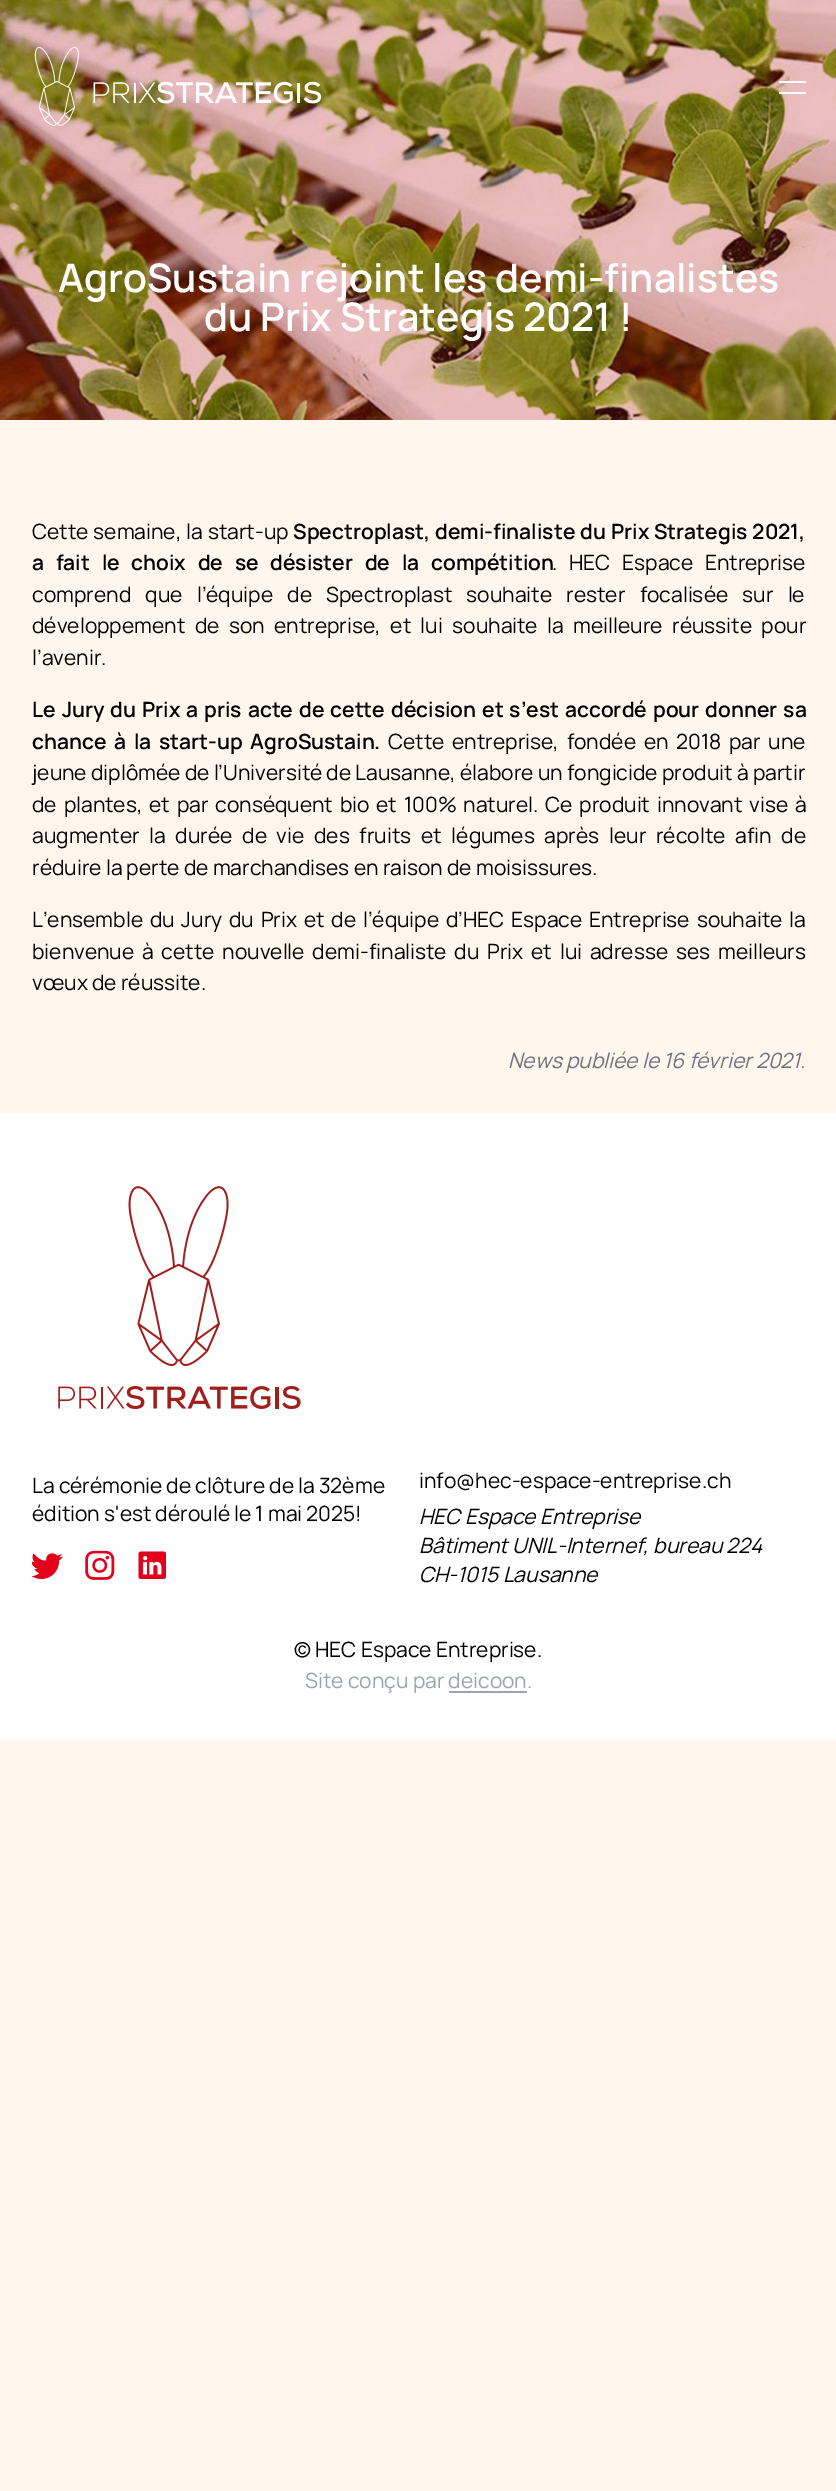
%!PS
<< /PageSize [836 2491] >> setpagedevice
/picture { 5 dict begin { /h /w /y /x /name } { exch def } forall
  gsave x y translate w h scale
  w h 8 [w 0 0 h 0 0] name (r) file false 3 colorimage grestore end } def
0 2491 translate 1 -1 scale
4 setmiterlimit
1 0.969 0.929 setrgbcolor
0 0 836 2491 rectfill
(img1.rgb) 0 0 836 420 picture
(img2.rgb) 34 46 288 80 picture
1 setgray
779 81 27 2 rectfill
779 92 27 2 rectfill
/Manrope-SemiBold [39.4 0 0 -39.4 0 0] selectfont
58 292 moveto (AgroSustain rejoint les demi-finalistes) show
204 331 moveto (du Prix Strategis 2021 !) show
/Manrope-Regular [21 0 0 -21 0 0] selectfont
0 setgray
32 539 moveto 0.75 0 32 (Cette semaine, la start-up) widthshow
/Manrope-SemiBold [21 0 0 -21 0 0] selectfont
293 539 moveto 0.75 0 32 (Spectroplast, demi-finaliste du Prix Strategis 2021,) widthshow
32 570 moveto 7.5 0 32 (a fait le choix de se désister de la compétition) widthshow
/Manrope-Regular [21 0 0 -21 0 0] selectfont
552 570 moveto 7.5 0 32 (. HEC Espace Entreprise) widthshow
32 602 moveto 10 0 32 (comprend que l’équipe de Spectroplast souhaite rester focalisée sur le) widthshow
32 633 moveto 5.25 0 32 (développement de son entreprise, et lui souhaite la meilleure réussite pour) widthshow
32 665 moveto (l’avenir.) show
/Manrope-SemiBold [21 0 0 -21 0 0] selectfont
32 717 moveto 1.75 0 32 (Le Jury du Prix a pris acte de cette décision et s’est accordé pour donner sa) widthshow
32 749 moveto 3.5 0 32 (chance à la start-up AgroSustain.) widthshow
/Manrope-Regular [21 0 0 -21 0 0] selectfont
388 749 moveto 3.5 0 32 (Cette entreprise, fondée en 2018 par une) widthshow
32 780 moveto (jeune diplômée de l’Université de Lausanne, élabore un fongicide produit à partir) show
32 812 moveto 2.6 0 32 (de plantes, et par conséquent bio et 100% naturel. Ce produit innovant vise à) widthshow
32 843 moveto 5.5 0 32 (augmenter la durée de vie des fruits et légumes après leur récolte afin de) widthshow
32 875 moveto (réduire la perte de marchandises en raison de moisissures.) show
32 927 moveto 2.6 0 32 (L’ensemble du Jury du Prix et de l’équipe d’HEC Espace Entreprise souhaite la) widthshow
32 959 moveto 3.6 0 32 (bienvenue à cette nouvelle demi-finaliste du Prix et lui adresse ses meilleurs) widthshow
32 990 moveto (vœux de réussite.) show
/Manrope-Italic [21 0 0 -21 0 0] selectfont
0.42 0.447 0.502 setrgbcolor
508 1068 moveto (News publiée le 16 février 2021.) show
1 setgray
0 1113 836 626 rectfill
(img3.rgb) 58 1186 243 224 picture
/Manrope-Regular [21 0 0 -21 0 0] selectfont
0 setgray
32 1493 moveto (La cérémonie de clôture de la 32ème) show
32 1521 moveto (édition s'est déroulé le 1 mai 2025!) show
(img4.rgb) 32 1553 31 26 picture
(img5.rgb) 85 1550 30 30 picture
(img6.rgb) 138 1551 29 28 picture
419 1488 moveto (info@hec-espace-entreprise.ch) show
/Manrope-Italic [21 0 0 -21 0 0] selectfont
419 1524 moveto (HEC Espace Entreprise) show
419 1553 moveto (Bâtiment UNIL-Internef, bureau 224) show
419 1582 moveto (CH-1015 Lausanne) show
/Manrope-Regular [21 0 0 -21 0 0] selectfont
294 1657 moveto (© HEC Espace Entreprise.) show
0.612 0.639 0.686 setrgbcolor
305 1688 moveto (Site conçu par deicoon.) show
449 1691 78 2 rectfill
showpage
